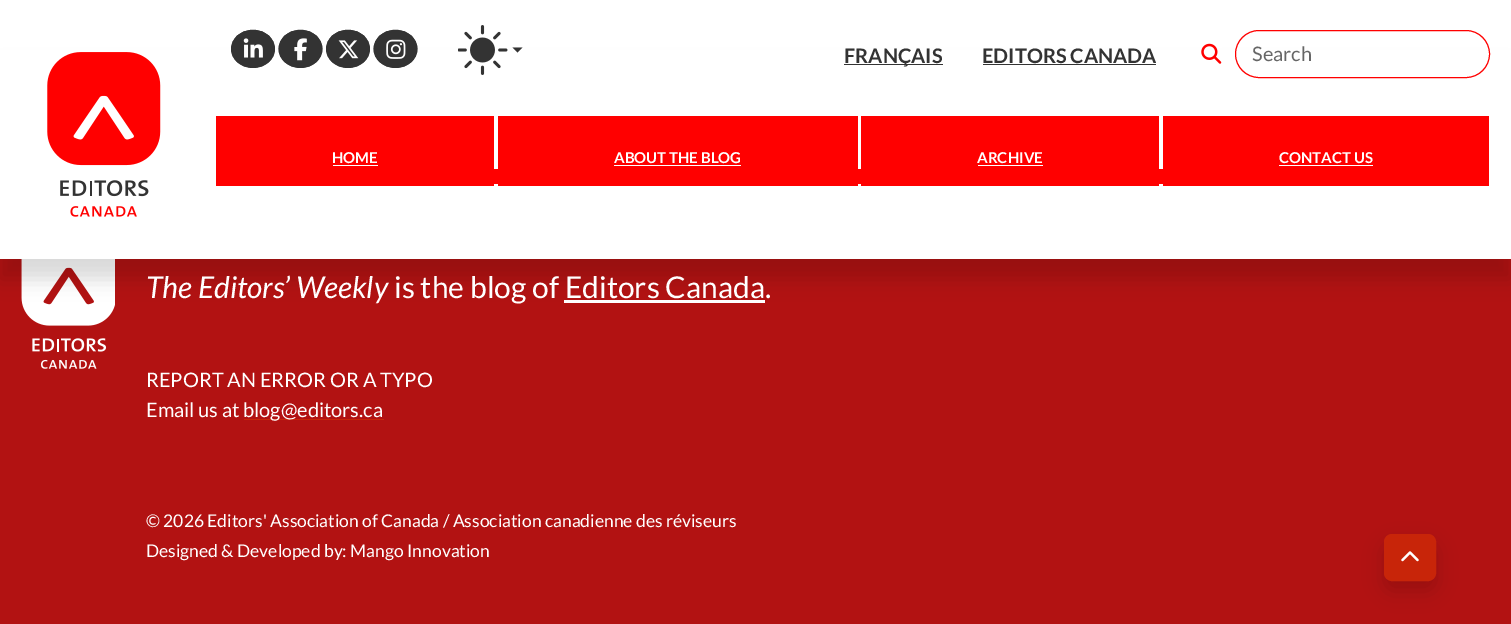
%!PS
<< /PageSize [1511 624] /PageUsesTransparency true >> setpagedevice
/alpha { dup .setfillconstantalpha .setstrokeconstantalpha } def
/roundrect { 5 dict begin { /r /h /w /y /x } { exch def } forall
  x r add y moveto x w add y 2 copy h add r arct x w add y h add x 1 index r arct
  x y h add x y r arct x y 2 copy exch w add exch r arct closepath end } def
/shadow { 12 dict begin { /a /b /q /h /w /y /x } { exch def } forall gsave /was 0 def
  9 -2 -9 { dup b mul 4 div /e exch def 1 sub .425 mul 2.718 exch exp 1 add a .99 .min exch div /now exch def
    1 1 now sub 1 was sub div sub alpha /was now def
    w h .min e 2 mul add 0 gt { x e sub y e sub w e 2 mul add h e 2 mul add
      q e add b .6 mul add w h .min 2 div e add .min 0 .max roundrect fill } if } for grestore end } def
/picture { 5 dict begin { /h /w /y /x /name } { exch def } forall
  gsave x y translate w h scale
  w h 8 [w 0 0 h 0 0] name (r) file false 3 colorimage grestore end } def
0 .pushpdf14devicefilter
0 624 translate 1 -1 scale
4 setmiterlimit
0.698 0.071 0.071 setrgbcolor
0 0 1511 624 rectfill
1 setgray
0 0 1511 259 rectfill
(img8.rgb) 21 259 94 110 picture
564 300 201 3 rectfill
gsave
newpath 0 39 moveto 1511 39 lineto 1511 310 lineto 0 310 lineto closepath 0 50 moveto 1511 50 lineto 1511 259 lineto 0 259 lineto closepath eoclip newpath
0 setgray
0 70 1511 209 0 10 0.15 shadow
grestore
0.2 setgray
newpath 253 30 moveto 265 30 275 38.5 275 49 curveto 275 59.5 265 68 253 68 curveto 241 68 231 59.5 231 49 curveto 231 38.5 241 30 253 30 curveto closepath fill
1.2 setlinewidth
newpath 253 30.5 moveto 281 30.5 281 67 253 67 curveto 225 67 225 30.5 253 30.5 curveto closepath stroke
(img1.rgb) 243 38 20 20 picture
newpath 300.5 30 moveto 312.5 30 322.5 38.5 322.5 49 curveto 322.5 59.5 312.5 68 300.5 68 curveto 288.5 68 278.5 59.5 278.5 49 curveto 278.5 38.5 288.5 30 300.5 30 curveto closepath fill
newpath 300.5 30.5 moveto 328.5 30.5 328.5 67 300.5 67 curveto 272.5 67 272.5 30.5 300.5 30.5 curveto closepath stroke
(img2.rgb) 294 38 13 23 picture
newpath 348 30 moveto 360 30 370 38.5 370 49 curveto 370 59.5 360 68 348 68 curveto 336 68 326 59.5 326 49 curveto 326 38.5 336 30 348 30 curveto closepath fill
newpath 348 30.5 moveto 376 30.5 376 67 348 67 curveto 320 67 320 30.5 348 30.5 curveto closepath stroke
(img3.rgb) 338 40 21 19 picture
newpath 395.5 30 moveto 407.5 30 417.5 38.5 417.5 49 curveto 417.5 59.5 407.5 68 395.5 68 curveto 383.5 68 373.5 59.5 373.5 49 curveto 373.5 38.5 383.5 30 395.5 30 curveto closepath fill
newpath 395.5 30.5 moveto 423.5 30.5 423.5 67 395.5 67 curveto 367.5 67 367.5 30.5 395.5 30.5 curveto closepath stroke
(img4.rgb) 386 39 20 20 picture
(img5.rgb) 458 25 50 50 picture
newpath 512.5 47.5 moveto 522.5 47.5 lineto 517.5 52.5 lineto closepath fill
844 64 99 1 rectfill
/Lato-Bold [20 0 0 -20 0 0] selectfont
844 63 moveto (FRANÇAIS) show
982 63 moveto (EDITORS CANADA) show
983 64 173 1 rectfill
(img6.rgb) 1201 43 21 21 picture
1 0 0 setrgbcolor
1 setlinewidth
1235.5 30.5 254 47 23.5 roundrect stroke
/Lato-Regular [20 0 0 -20 0 0] selectfont
0.4 setgray
1252 61 moveto (Search) show
(img7.rgb) 47 52 114 165 picture
1 0 0 setrgbcolor
494 169 669 15 rectfill
216 116 278 70 rectfill
/Lato-Bold [15 0 0 -15 0 0] selectfont
1 setgray
332 163 moveto (HOME) show
333 165 45 1 rectfill
1 0 0 setrgbcolor
498 116 360 70 rectfill
1 setgray
614 163 moveto (ABOUT THE BLOG) show
614 165 127 1 rectfill
1 0 0 setrgbcolor
861 116 298 70 rectfill
1 setgray
977 163 moveto (ARCHIVE) show
978 165 65 1 rectfill
1 0 0 setrgbcolor
1163 116 326 70 rectfill
1 setgray
1279 163 moveto (CONTACT US) show
1279 165 94 1 rectfill
/Lato-Italic [30 0 0 -30 0 0] selectfont
146 298 moveto (The Editors’ Weekly) show
/Lato-Regular [30 0 0 -30 0 0] selectfont
394 298 moveto (is the blog of Editors Canada.) show
/Lato-Regular [20 0 0 -20 0 0] selectfont
146 387 moveto (REPORT AN ERROR OR A TYPO) show
146 417 moveto (Email us at) show
0.784 0.145 0.035 setrgbcolor
244 419 140 1 rectfill
1 setgray
243 417 moveto (blog@editors.ca) show
/Lato-Regular [17.5 0 0 -17.5 0 0] selectfont
146 527 moveto (© 2026 Editors' Association of Canada / Association canadienne des réviseurs) show
146 557 moveto (Designed & Developed by: Mango Innovation) show
0 setgray
1384 544 52 47 8 10 0.15 shadow
0.784 0.145 0.035 setrgbcolor
1384.5 534.5 51 46 7.5 roundrect gsave fill grestore
stroke
(img9.rgb) 1401 551 18 11 picture
.poppdf14devicefilter showpage
